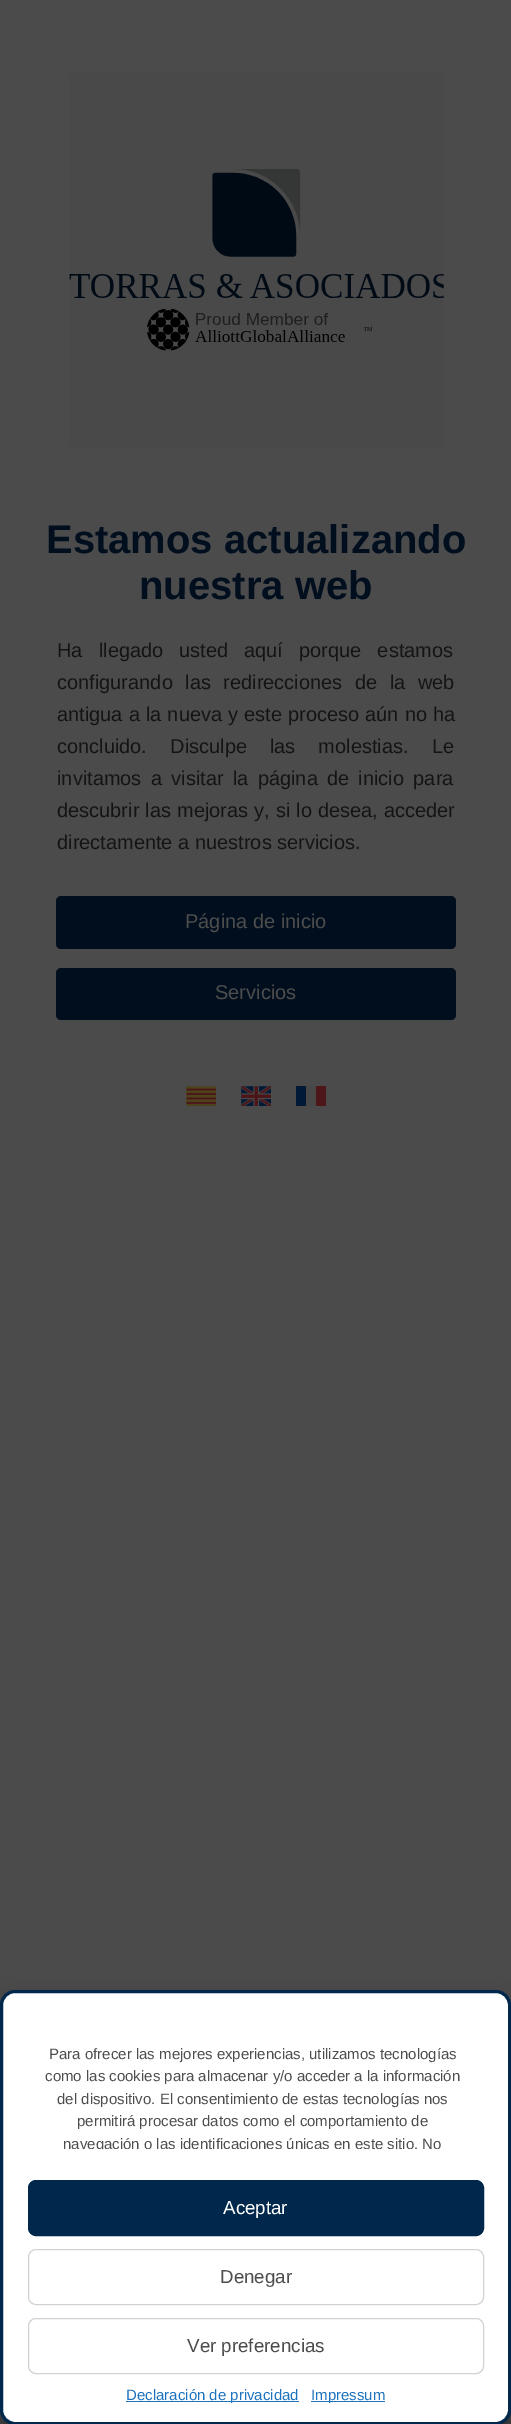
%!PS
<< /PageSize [511 2424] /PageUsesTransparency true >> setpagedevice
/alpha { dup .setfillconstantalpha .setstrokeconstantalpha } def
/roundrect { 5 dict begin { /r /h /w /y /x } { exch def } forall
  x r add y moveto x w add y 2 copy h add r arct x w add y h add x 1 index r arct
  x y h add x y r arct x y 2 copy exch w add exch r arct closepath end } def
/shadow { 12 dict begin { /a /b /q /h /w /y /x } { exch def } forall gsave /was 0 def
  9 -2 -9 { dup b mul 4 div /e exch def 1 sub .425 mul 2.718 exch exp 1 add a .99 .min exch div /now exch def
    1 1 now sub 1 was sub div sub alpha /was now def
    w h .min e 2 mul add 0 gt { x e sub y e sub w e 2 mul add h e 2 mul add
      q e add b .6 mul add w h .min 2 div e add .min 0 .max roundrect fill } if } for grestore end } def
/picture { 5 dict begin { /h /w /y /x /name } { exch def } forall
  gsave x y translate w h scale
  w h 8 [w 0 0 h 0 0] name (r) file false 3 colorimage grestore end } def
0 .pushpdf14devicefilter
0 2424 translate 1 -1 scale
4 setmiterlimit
0.294 0.294 0.298 setrgbcolor
0 0 511 2424 rectfill
(img1.rgb) 69 73 375 374 picture
/LiberationSans-Bold [40 0 0 -40 0 0] selectfont
0 0.055 0.114 setrgbcolor
46 553 moveto (Estamos actualizando) show
139 599 moveto (nuestra web) show
/LiberationSans-Regular [20 0 0 -20 0 0] selectfont
0.078 setgray
57 657 moveto 10.5 0 32 (Ha llegado usted aquí porque estamos) widthshow
57 689 moveto 7 0 32 (configurando las redirecciones de la web) widthshow
57 721 moveto 0.5 0 32 (antigua a la nueva y este proceso aún no ha) widthshow
57 753 moveto 17.5 0 32 (concluido. Disculpe las molestias. Le) widthshow
57 785 moveto 3.75 0 32 (invitamos a visitar la página de inicio para) widthshow
57 817 moveto 0.5 0 32 (descubrir las mejoras y, si lo desea, acceder) widthshow
57 849 moveto (directamente a nuestros servicios.) show
0 0.055 0.114 setrgbcolor
56 896 400 53 5 roundrect fill
0.302 setgray
185 928 moveto (Página de inicio) show
0 0.055 0.114 setrgbcolor
56 968 400 52 5 roundrect fill
0.302 setgray
215 999 moveto (Servicios) show
(img2.rgb) 186 1086 30 20 picture
(img3.rgb) 241 1086 30 20 picture
0 0.098 0.212 setrgbcolor
296 1086 10 20 rectfill
0.282 setgray
306 1086 10 20 rectfill
0.302 0.09 0.102 setrgbcolor
316 1086 10 20 rectfill
0 setgray
0 1998 511 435 15 4 0.23 shadow
0 2003 511 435 15 12.5 0.19 shadow
1 setgray
1.5 1991.5 508 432 13.5 roundrect gsave fill grestore
0 0.157 0.302 setrgbcolor
3 setlinewidth
stroke
/LiberationSans-Regular [15 0 0 -15 0 0] selectfont
0.302 setgray
49 2059 moveto (Para ofrecer las mejores experiencias, utilizamos tecnologías) show
45 2081 moveto (como las cookies para almacenar y/o acceder a la información) show
57 2104 moveto (del dispositivo. El consentimiento de estas tecnologías nos) show
77 2126 moveto (permitirá procesar datos como el comportamiento de) show
gsave
28 2036 450 113 rectclip
63 2149 moveto (navegación o las identificaciones únicas en este sitio. No) show
grestore
0 0.157 0.302 setrgbcolor
28.5 2180.5 455 55 7.5 roundrect gsave fill grestore
1 setlinewidth
stroke
/LiberationSans-Regular [18.75 0 0 -18.75 0 0] selectfont
1 setgray
223 2214 moveto (Aceptar) show
0.824 setgray
28.5 2249.5 455 55 7.5 roundrect stroke
0.302 setgray
220 2283 moveto (Denegar) show
0.824 setgray
28.5 2318.5 455 55 7.5 roundrect stroke
0.302 setgray
187 2352 moveto (Ver preferencias) show
0.118 0.451 0.745 setrgbcolor
126 2401 173 1 rectfill
/LiberationSans-Regular [15 0 0 -15 0 0] selectfont
126 2400 moveto (Declaración de privacidad) show
311 2401 74 1 rectfill
311 2400 moveto (Impressum) show
.poppdf14devicefilter showpage
